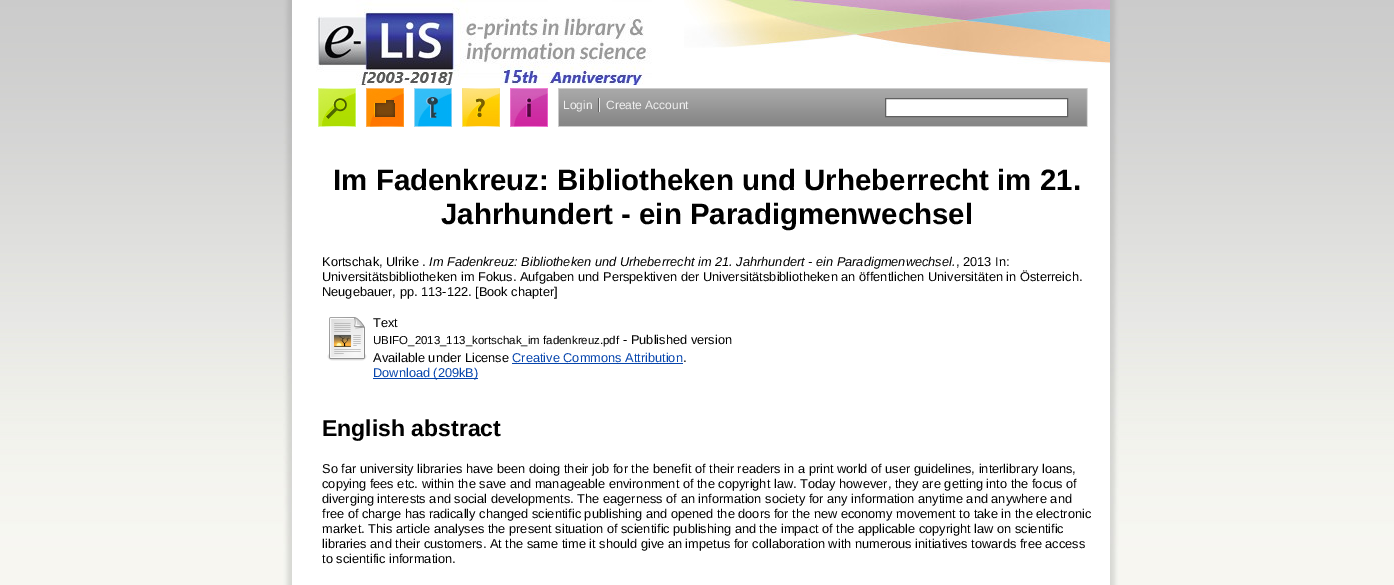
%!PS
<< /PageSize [1394 585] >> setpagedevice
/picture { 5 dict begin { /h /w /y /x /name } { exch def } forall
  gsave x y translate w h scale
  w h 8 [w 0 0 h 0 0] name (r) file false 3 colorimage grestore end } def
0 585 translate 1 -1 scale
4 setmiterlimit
1 setgray
0 0 1394 585 rectfill
(img1.rgb) 0 0 1394 585 picture
292 0 818 585 rectfill
(img2.rgb) 283 0 9 585 picture
(img3.rgb) 316 0 336 85 picture
(img4.rgb) 684 0 426 64 picture
(img5.rgb) 318 88 38 39 picture
(img6.rgb) 366 88 38 39 picture
(img7.rgb) 414 88 38 39 picture
(img8.rgb) 462 88 38 39 picture
(img9.rgb) 510 88 38 39 picture
(img10.rgb) 558 88 530 39 picture
0.376 setgray
598 98 1 14 rectfill
/LiberationSans-Regular [12 0 0 -12 0 0] selectfont
0.941 setgray
563 109 moveto (Login) show
0.91 setgray
599 98 1 14 rectfill
0.941 setgray
606 109 moveto (Create Account) show
1 setgray
newpath 885.5 98.5 moveto 1067.5 98.5 lineto 1067.5 116.5 lineto 885.5 116.5 lineto closepath gsave fill grestore
0.376 setgray
stroke
/LiberationSans-Bold [29.45 0 0 -29.45 0 0] selectfont
0 setgray
333 190 moveto (Im Fadenkreuz: Bibliotheken und Urheberrecht im 21.) show
441 224 moveto (Jahrhundert - ein Paradigmenwechsel) show
/LiberationSans-Regular [12.8 0 0 -12.8 0 0] selectfont
322 266 moveto (Kortschak, Ulrike .) show
/LiberationSans-Italic [12.8 0 0 -12.8 0 0] selectfont
429 266 moveto (Im Fadenkreuz: Bibliotheken und Urheberrecht im 21. Jahrhundert - ein Paradigmenwechsel.) show
/LiberationSans-Regular [12.8 0 0 -12.8 0 0] selectfont
956 266 moveto (, 2013 In:) show
322 281 moveto (Universitätsbibliotheken im Fokus. Aufgaben und Perspektiven der Universitätsbibliotheken an öffentlichen Universitäten in Österreich.) show
322 296 moveto (Neugebauer, pp. 113-122. [Book chapter]) show
(img11.rgb) 327 317 40 44 picture
373 327 moveto (Text) show
/LiberationSans-Regular [11.5 0 0 -11.5 0 0] selectfont
373 344 moveto (UBIFO_2013_113_kortschak_im fadenkreuz.pdf) show
/LiberationSans-Regular [12.8 0 0 -12.8 0 0] selectfont
623 344 moveto (- Published version) show
373 362 moveto (Available under License) show
0.024 0.271 0.678 setrgbcolor
512 362 moveto (Creative Commons Attribution) show
0 setgray
683 362 moveto (.) show
0.024 0.271 0.678 setrgbcolor
512 363 171 1 rectfill
373 378 105 1 rectfill
373 377 moveto (Download \(209kB\)) show
/LiberationSans-Bold [23 0 0 -23 0 0] selectfont
0 setgray
322 436 moveto (English abstract) show
/LiberationSans-Regular [12.8 0 0 -12.8 0 0] selectfont
322 473 moveto (So far university libraries have been doing their job for the benefit of their readers in a print world of user guidelines, interlibrary loans,) show
322 488 moveto (copying fees etc. within the save and manageable environment of the copyright law. Today however, they are getting into the focus of) show
322 503 moveto (diverging interests and social developments. The eagerness of an information society for any information anytime and anywhere and) show
322 518 moveto (free of charge has radically changed scientific publishing and opened the doors for the new economy movement to take in the electronic) show
322 533 moveto (market. This article analyses the present situation of scientific publishing and the impact of the applicable copyright law on scientific) show
322 548 moveto (libraries and their customers. At the same time it should give an impetus for collaboration with numerous initiatives towards free access) show
322 563 moveto (to scientific information.) show
(img12.rgb) 1110 0 9 585 picture
showpage
